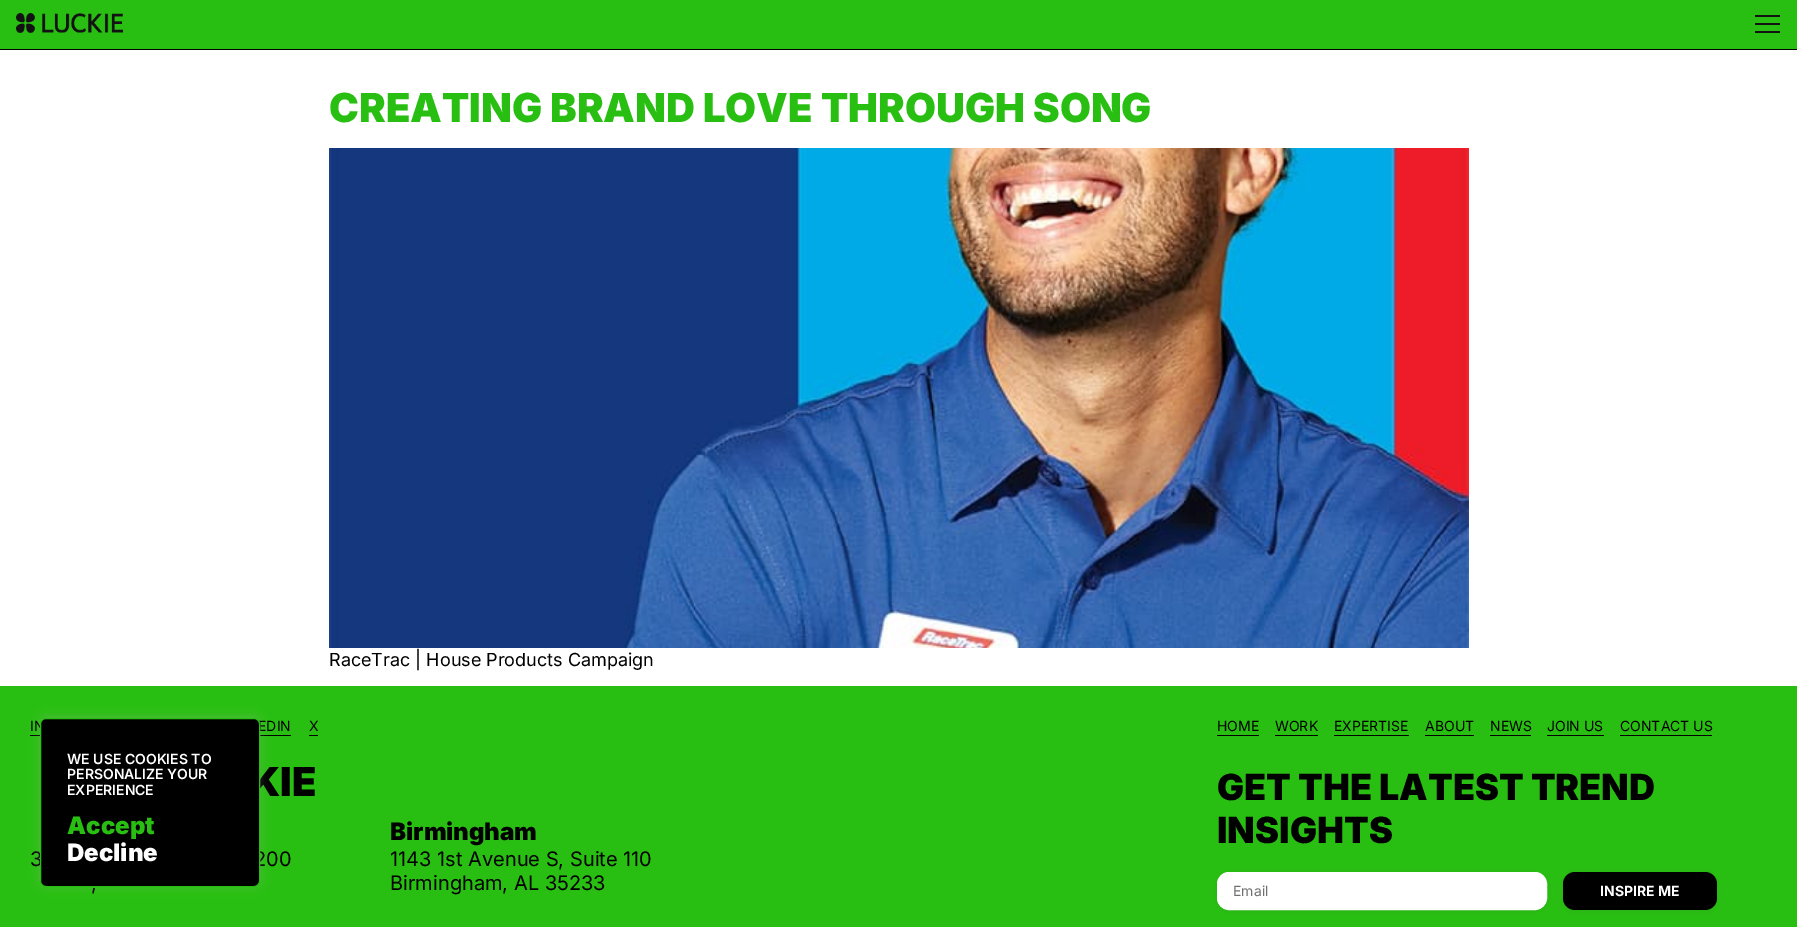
%!PS
<< /PageSize [1797 927] /PageUsesTransparency true >> setpagedevice
/alpha { dup .setfillconstantalpha .setstrokeconstantalpha } def
/roundrect { 5 dict begin { /r /h /w /y /x } { exch def } forall
  x r add y moveto x w add y 2 copy h add r arct x w add y h add x 1 index r arct
  x y h add x y r arct x y 2 copy exch w add exch r arct closepath end } def
/shadow { 12 dict begin { /a /b /q /h /w /y /x } { exch def } forall gsave /was 0 def
  9 -2 -9 { dup b mul 4 div /e exch def 1 sub .425 mul 2.718 exch exp 1 add a .99 .min exch div /now exch def
    1 1 now sub 1 was sub div sub alpha /was now def
    w h .min e 2 mul add 0 gt { x e sub y e sub w e 2 mul add h e 2 mul add
      q e add b .6 mul add w h .min 2 div e add .min 0 .max roundrect fill } if } for grestore end } def
/picture { 5 dict begin { /h /w /y /x /name } { exch def } forall
  gsave x y translate w h scale
  w h 8 [w 0 0 h 0 0] name (r) file false 3 colorimage grestore end } def
0 .pushpdf14devicefilter
0 927 translate 1 -1 scale
4 setmiterlimit
1 setgray
0 0 1797 927 rectfill
0.161 0.749 0.071 setrgbcolor
0 0 1797 49 rectfill
0 setgray
0 49 1797 1 rectfill
(img1.rgb) 16 13 107 20 picture
0.071 setgray
1755 23 25 2 rectfill
1755 15 25 2 rectfill
1755 31 25 2 rectfill
/Inter-Black [40 0 0 -40 0 0] selectfont
0.161 0.749 0.071 setrgbcolor
329 122 moveto (CREATING BRAND LOVE THROUGH SONG) show
(img2.rgb) 329 148 1140 500 picture
/Inter-Regular [18 0 0 -18 0 0] selectfont
0 setgray
329 666 moveto (RaceTrac | House Products Campaign) show
0.161 0.749 0.071 setrgbcolor
0 686 1797 241 rectfill
/Inter-Regular [14 0 0 -14 0 0] selectfont
0 setgray
30 731 moveto (IN) show
30 735 10 1 rectfill
258 731 moveto (EDIN) show
260 735 31 1 rectfill
309 731 moveto (X) show
309 735 9 1 rectfill
/Inter-Black [40 0 0 -40 0 0] selectfont
250 796 moveto (KIE) show
/Inter-Regular [20 0 0 -20 0 0] selectfont
30 866 moveto (3) show
254 866 moveto (200) show
91 890 moveto (,) show
/Inter-Black [24 0 0 -24 0 0] selectfont
390 840 moveto (Birmingham) show
/Inter-Regular [20 0 0 -20 0 0] selectfont
390 866 moveto (1143 1st Avenue S, Suite 110) show
390 890 moveto (Birmingham, AL 35233) show
/Inter-Regular [14 0 0 -14 0 0] selectfont
1217 731 moveto (HOME) show
1217 735 42 1 rectfill
1275 731 moveto (WORK) show
1275 735 43 1 rectfill
1334 731 moveto (EXPERTISE) show
1334 735 75 1 rectfill
1425 731 moveto (ABOUT) show
1425 735 49 1 rectfill
1490 731 moveto (NEWS) show
1490 735 41 1 rectfill
1547 731 moveto (JOIN US) show
1547 735 57 1 rectfill
1620 731 moveto (CONTACT US) show
1620 735 92 1 rectfill
/Inter-Black [36 0 0 -36 0 0] selectfont
1217 800 moveto (GET THE LATEST TREND) show
1217 843 moveto (INSIGHTS) show
0.071 0.098 0.38 setrgbcolor
1217 873 330 38 12 2 0.08 shadow
1 setgray
1217.5 872.5 329 37 11.5 roundrect gsave fill grestore
stroke
/Inter-Regular [14 0 0 -14 0 0] selectfont
0.439 setgray
1233 896 moveto (Email) show
0.071 0.098 0.38 setrgbcolor
1563 873 154 38 12 2 0.08 shadow
0 setgray
1563 872 154 38 12 roundrect fill
/Inter-Bold [14 0 0 -14 0 0] selectfont
1 setgray
1600 896 moveto (INSPIRE ME) show
0.675 0.671 0.671 setrgbcolor
40 717 220 169 6 5 0.3 shadow
0 setgray
40.5 718.5 219 168 5.5 roundrect gsave fill grestore
0.161 0.749 0.071 setrgbcolor
stroke
/Inter-SemiBold [14 0 0 -14 0 0] selectfont
1 setgray
67 764 moveto (WE USE COOKIES TO) show
67 779 moveto (PERSONALIZE YOUR) show
67 795 moveto (EXPERIENCE) show
/Inter-Black [24 0 0 -24 0 0] selectfont
0.161 0.749 0.071 setrgbcolor
67 834 moveto (Accept) show
1 setgray
67 861 moveto (Decline) show
.poppdf14devicefilter showpage
